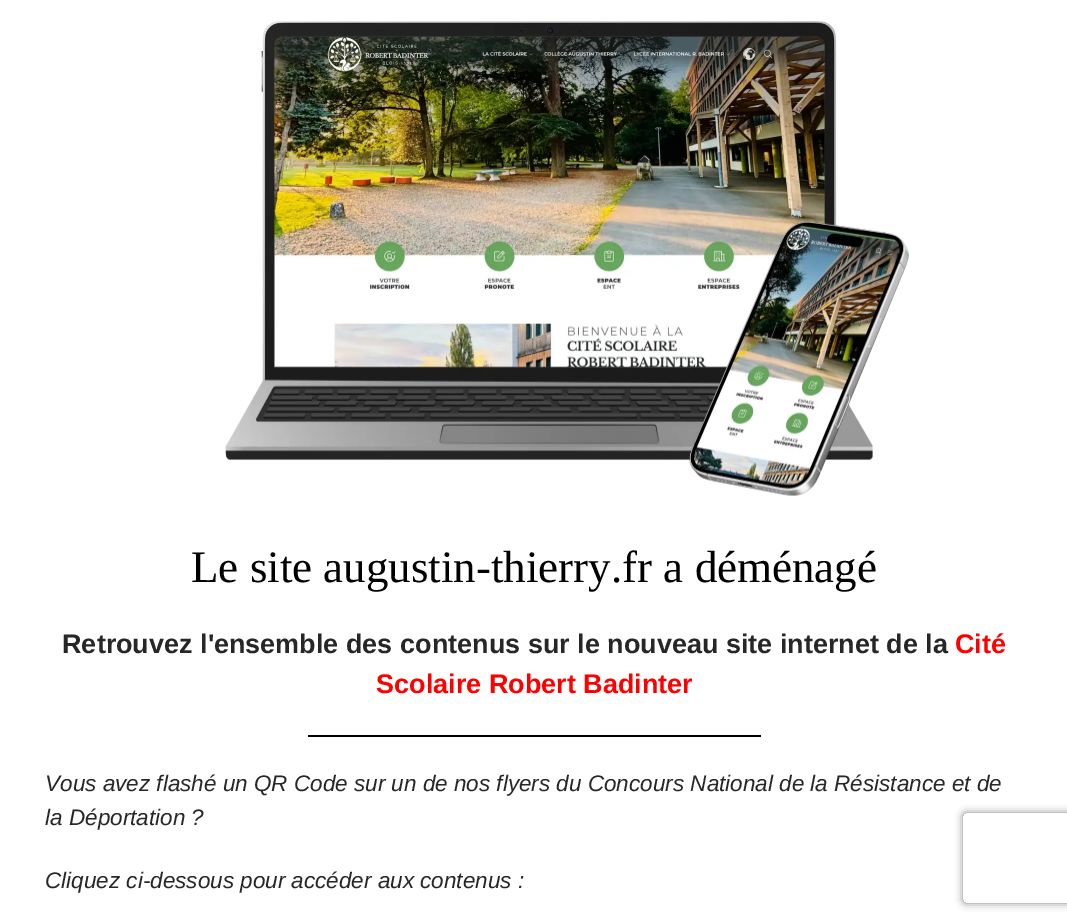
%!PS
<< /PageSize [1067 924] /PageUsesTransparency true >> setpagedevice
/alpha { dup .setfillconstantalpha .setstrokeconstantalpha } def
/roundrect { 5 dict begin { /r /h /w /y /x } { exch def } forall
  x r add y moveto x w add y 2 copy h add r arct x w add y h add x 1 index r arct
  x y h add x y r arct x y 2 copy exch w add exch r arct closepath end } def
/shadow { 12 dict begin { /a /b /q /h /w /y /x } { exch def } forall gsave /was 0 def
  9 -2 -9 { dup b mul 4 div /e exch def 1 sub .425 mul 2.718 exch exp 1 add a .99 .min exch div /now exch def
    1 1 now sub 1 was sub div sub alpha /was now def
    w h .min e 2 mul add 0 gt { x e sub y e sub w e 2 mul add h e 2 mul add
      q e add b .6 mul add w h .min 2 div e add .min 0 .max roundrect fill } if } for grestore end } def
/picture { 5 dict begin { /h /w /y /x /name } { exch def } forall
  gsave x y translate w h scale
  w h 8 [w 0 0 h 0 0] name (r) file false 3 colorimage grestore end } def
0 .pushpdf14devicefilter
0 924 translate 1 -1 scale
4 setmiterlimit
1 setgray
0 0 1067 924 rectfill
(img1.rgb) 225 21 684 475 picture
/LiberationSerif-Regular [45 0 0 -45 0 0] selectfont
0 setgray
191 582 moveto (Le site augustin-thierry.fr a déménagé) show
/LiberationSans-Bold [27 0 0 -27 0 0] selectfont
0.153 setgray
62 653 moveto (Retrouvez l'ensemble des contenus sur le nouveau site internet de la) show
1 0 0 setrgbcolor
955 653 moveto (Cité) show
376 693 moveto (Scolaire Robert Badinter) show
0 setgray
308 735 453 2 rectfill
/LiberationSans-Italic [22.5 0 0 -22.5 0 0] selectfont
0.153 setgray
45 791 moveto (Vous avez flashé un QR Code sur un de nos flyers du Concours National de la Résistance et de) show
45 825 moveto (la Déportation ?) show
45 888 moveto (Cliquez ci-dessous pour accéder aux contenus :) show
gsave
newpath 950 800 moveto 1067 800 lineto 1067 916 lineto 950 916 lineto closepath 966 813 moveto 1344 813 lineto 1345.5 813 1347 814.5 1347 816 curveto 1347 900 lineto 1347 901.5 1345.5 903 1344 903 curveto 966 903 lineto 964.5 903 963 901.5 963 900 curveto 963 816 lineto 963 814.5 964.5 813 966 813 curveto closepath eoclip newpath
0.502 setgray
963 813 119 90 3 4 1 shadow
grestore
.poppdf14devicefilter showpage
